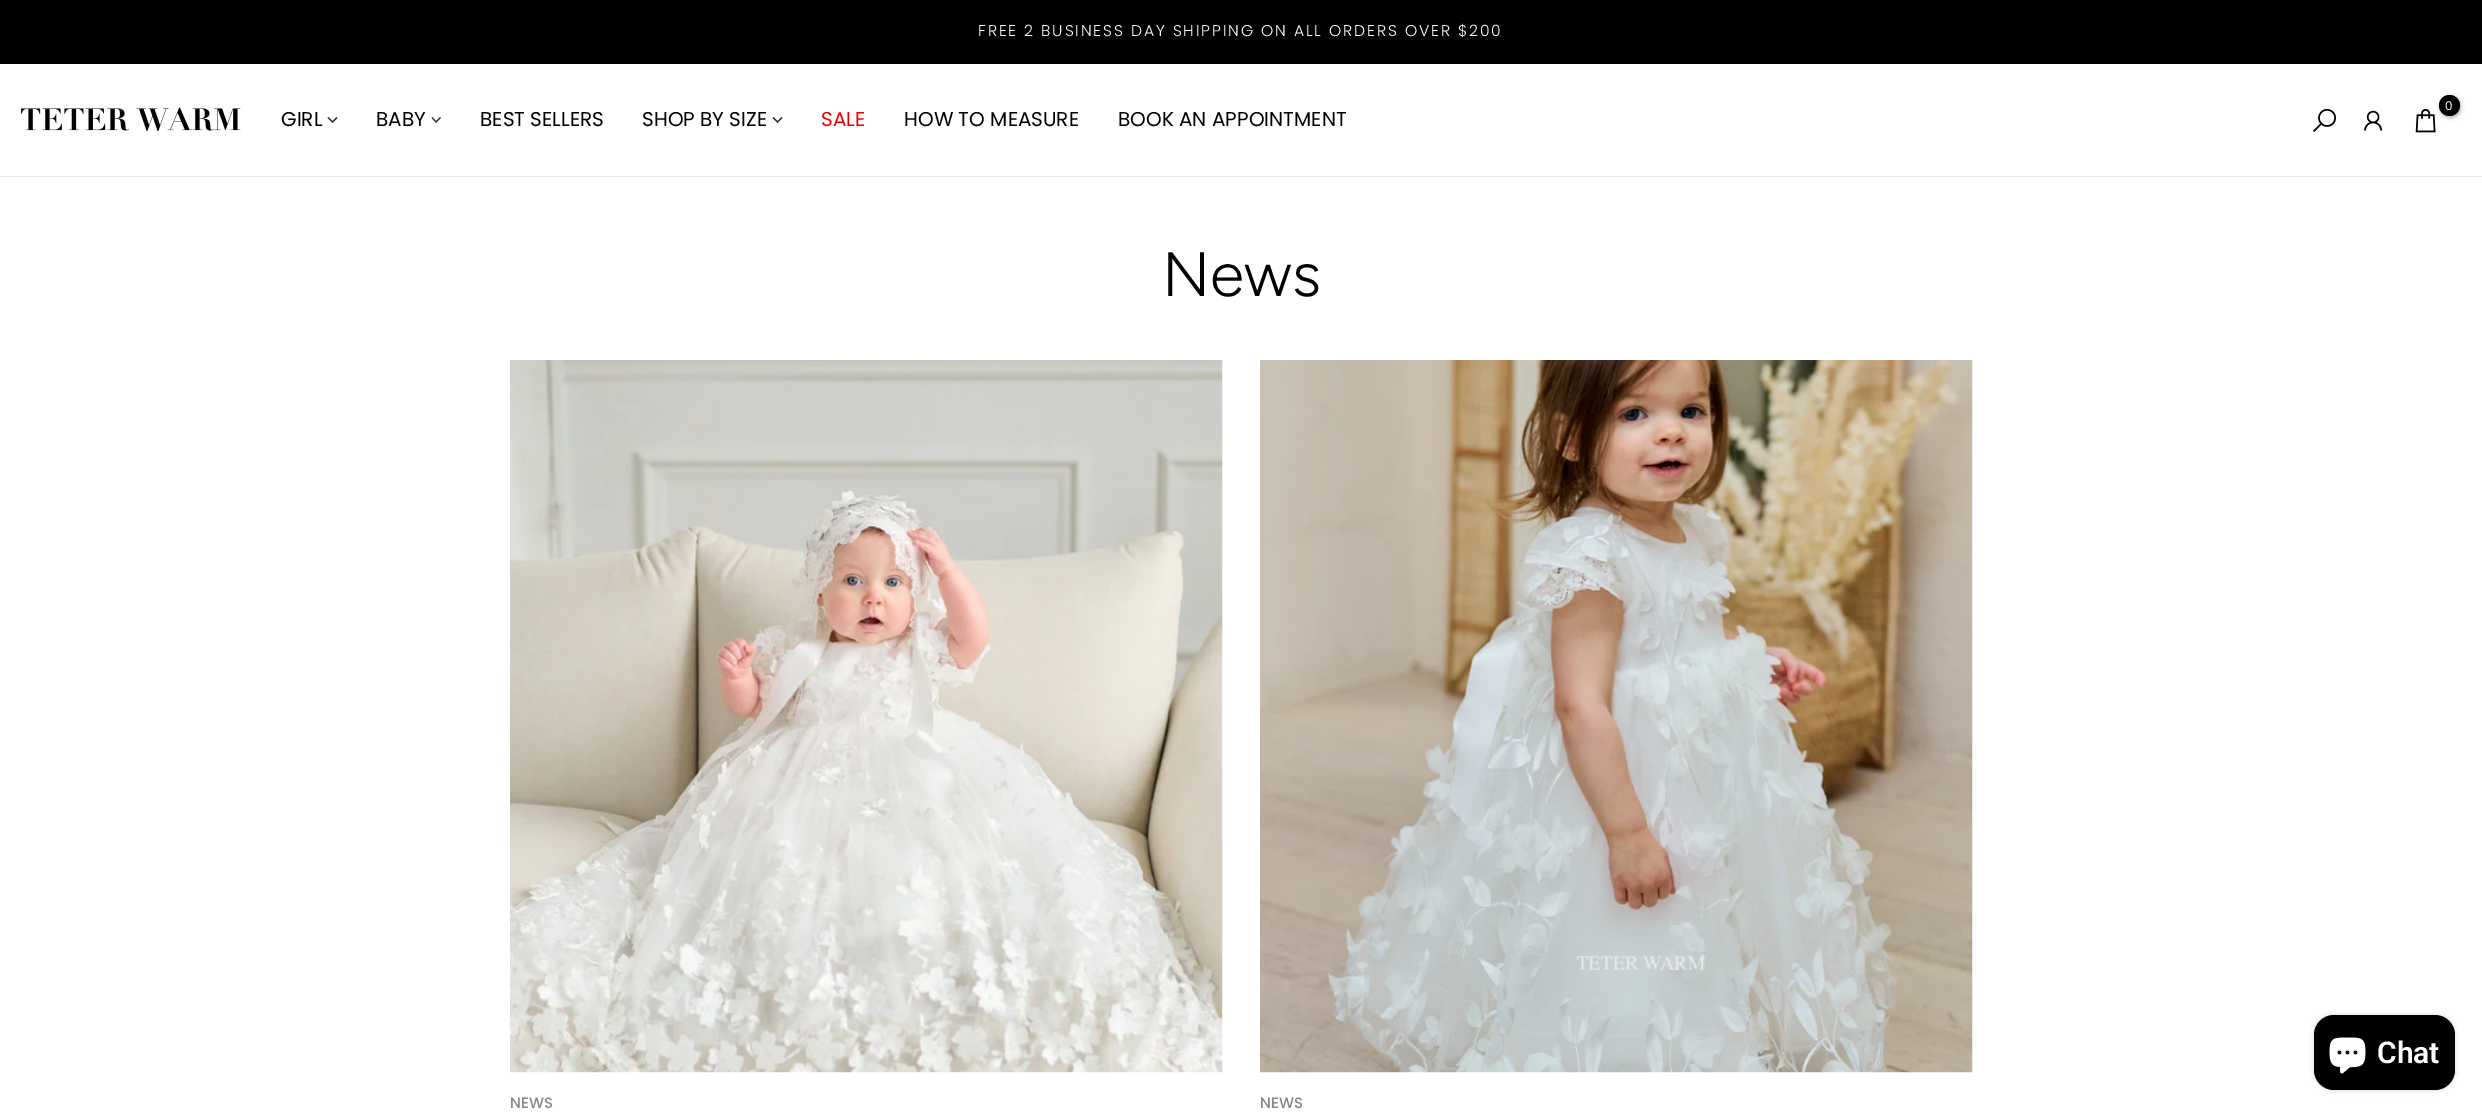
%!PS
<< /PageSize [2482 1116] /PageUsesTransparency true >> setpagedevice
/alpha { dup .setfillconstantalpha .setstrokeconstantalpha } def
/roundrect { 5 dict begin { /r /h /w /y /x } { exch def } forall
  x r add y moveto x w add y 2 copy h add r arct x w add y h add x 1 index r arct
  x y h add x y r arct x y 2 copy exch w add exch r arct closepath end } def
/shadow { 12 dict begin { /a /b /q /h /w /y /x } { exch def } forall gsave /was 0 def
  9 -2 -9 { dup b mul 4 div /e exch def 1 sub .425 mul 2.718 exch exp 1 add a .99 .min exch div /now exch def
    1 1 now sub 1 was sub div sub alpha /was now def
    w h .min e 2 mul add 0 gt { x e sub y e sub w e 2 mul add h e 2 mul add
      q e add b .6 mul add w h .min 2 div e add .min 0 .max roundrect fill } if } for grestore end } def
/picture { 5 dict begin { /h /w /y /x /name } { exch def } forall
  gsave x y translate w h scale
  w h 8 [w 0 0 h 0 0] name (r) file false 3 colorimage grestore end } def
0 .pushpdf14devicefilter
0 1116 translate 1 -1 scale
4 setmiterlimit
1 setgray
0 0 2482 1116 rectfill
0 setgray
0 0 2482 64 rectfill
/Poppins-Light [15.6 0 0 -15.6 0 0] selectfont
1 setgray
978 36 moveto 1.88 0 (FREE 2 BUSINESS DAY SHIPPING ON ALL ORDERS OVER $200) ashow
(img1.rgb) 2415 108 21 25 picture
0 setgray
2440 96 21 22 10.5 2 0.3 shadow
newpath 2449.5 105.5 10.5 0 360 arc closepath fill
/Poppins-Regular [12 0 0 -12 0 0] selectfont
1 setgray
2445 110 moveto (0) show
(img2.rgb) 2313 109 23 23 picture
(img3.rgb) 2364 110 19 21 picture
(img4.rgb) 21 107 220 24 picture
/Poppins-Regular [20 0 0 -20 0 0] selectfont
0 setgray
281 126 moveto (GIRL) show
0.2 setgray
1.1 setlinewidth
2 setlinecap
newpath 336.5 118 moveto 332.5 122 lineto 328.5 118 lineto stroke
0 setgray
376 126 moveto (BABY) show
0.2 setgray
newpath 440 118 moveto 436 122 lineto 432.5 118 lineto stroke
0 setgray
480 126 moveto (BEST SELLERS) show
642 126 moveto (SHOP BY SIZE) show
0.2 setgray
newpath 781.5 118 moveto 777.5 122 lineto 773.5 118 lineto stroke
0.925 0.004 0.004 setrgbcolor
821 126 moveto (SALE) show
0 setgray
904 126 moveto (HOW TO MEASURE) show
1118 126 moveto (BOOK AN APPOINTMENT) show
0.902 setgray
0 176 2482 1 rectfill
/Figtree-Light [62.5 0 0 -62.5 0 0] selectfont
0 setgray
1162 296 moveto (News) show
(img5.rgb) 510 360 713 713 picture
/Poppins-Medium [15 0 0 -15 0 0] selectfont
0.525 setgray
510 1108 moveto (NEWS) show
(img6.rgb) 1260 360 713 713 picture
1260 1108 moveto (NEWS) show
0 setgray
2314 1015 141 75 20 3 0.15 shadow
2314 1015 141 75 20 roundrect fill
(img7.rgb) 2329 1037 37 37 picture
/Roboto-SemiBold [30 0 0 -30 0 0] selectfont
1 setgray
2377 1063 moveto (Chat) show
.poppdf14devicefilter showpage
